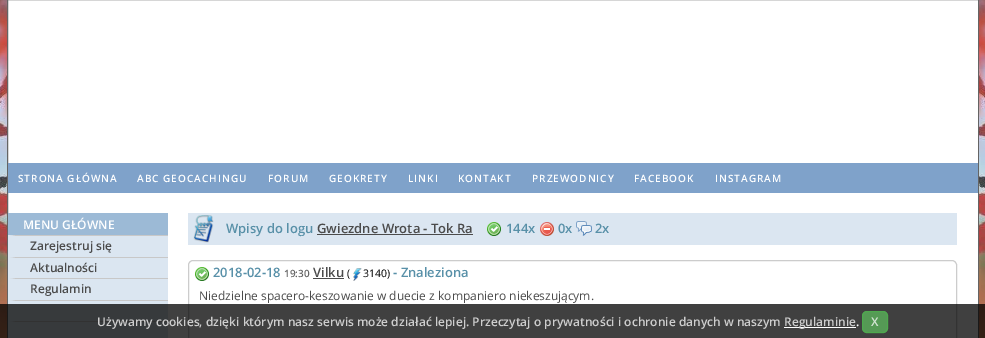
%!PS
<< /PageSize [985 338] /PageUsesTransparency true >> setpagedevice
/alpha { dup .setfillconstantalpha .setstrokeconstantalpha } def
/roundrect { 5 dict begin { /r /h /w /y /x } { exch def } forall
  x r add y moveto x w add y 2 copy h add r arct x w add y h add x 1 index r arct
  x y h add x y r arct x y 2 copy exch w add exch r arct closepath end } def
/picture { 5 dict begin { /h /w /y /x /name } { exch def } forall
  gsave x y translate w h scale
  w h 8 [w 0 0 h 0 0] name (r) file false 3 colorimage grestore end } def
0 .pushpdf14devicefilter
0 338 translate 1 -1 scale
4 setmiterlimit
1 setgray
0 0 985 338 rectfill
0.392 setgray
7.5 -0.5 971 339 rectstroke
(img1.rgb) 0 0 7 338 picture
0.498 0.635 0.792 setrgbcolor
8 163 970 30 rectfill
/OpenSans-SemiBold [10 0 0 -10 0 0] selectfont
1 setgray
18 182 moveto 1 0 (STRONA GŁÓWNA) ashow
137 182 moveto 1 0 (ABC GEOCACHINGU) ashow
268 182 moveto 1 0 (FORUM) ashow
329 182 moveto 1 0 (GEOKRETY) ashow
408 182 moveto 1 0 (LINKI) ashow
458 182 moveto 1 0 (KONTAKT) ashow
532 182 moveto 1 0 (PRZEWODNICY) ashow
634 182 moveto 1 0 (FACEBOOK) ashow
715 182 moveto 1 0 (INSTAGRAM) ashow
(img2.rgb) 979 0 6 338 picture
0.859 0.902 0.945 setrgbcolor
8 235 160 103 rectfill
0.612 0.729 0.839 setrgbcolor
8 213 160 22 rectfill
/OpenSans-SemiBold [12 0 0 -12 0 0] selectfont
1 setgray
23 229 moveto (MENU GŁÓWNE) show
0.784 setgray
newpath 8 235 moveto 168 235 lineto 168 236 lineto 15 236 lineto closepath fill
0.859 0.902 0.945 setrgbcolor
newpath 8 257 moveto 8 235 lineto 15 236 lineto 15 257 lineto closepath fill
0.294 setgray
30 250 moveto (Zarejestruj się) show
0.784 setgray
newpath 8 257 moveto 168 257 lineto 168 258 lineto 15 258 lineto closepath fill
0.859 0.902 0.945 setrgbcolor
newpath 8 278 moveto 8 257 lineto 15 258 lineto 15 278 lineto closepath fill
0.294 setgray
30 272 moveto (Aktualności) show
0.784 setgray
newpath 8 278 moveto 168 278 lineto 168 279 lineto 15 279 lineto closepath fill
0.859 0.902 0.945 setrgbcolor
newpath 8 300 moveto 8 278 lineto 15 279 lineto 15 300 lineto closepath fill
0.294 setgray
30 293 moveto (Regulamin) show
0.784 setgray
newpath 8 300 moveto 168 300 lineto 168 301 lineto 15 301 lineto closepath fill
0.859 0.902 0.945 setrgbcolor
newpath 8 321 moveto 8 300 lineto 15 301 lineto 15 321 lineto closepath fill
0.784 setgray
newpath 8 321 moveto 168 321 lineto 168 322 lineto 15 322 lineto closepath fill
0.859 0.902 0.945 setrgbcolor
newpath 8 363 moveto 8 321 lineto 15 322 lineto 15 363 lineto closepath fill
188 213 769 32 rectfill
(img3.rgb) 193 215 21 28 picture
/OpenSans-SemiBold [13 0 0 -13 0 0] selectfont
0.345 0.565 0.659 setrgbcolor
226 233 moveto (Wpisy do logu) show
0.294 setgray
317 233 moveto (Gwiezdne Wrota - Tok Ra) show
317 234 156 1 rectfill
(img4.rgb) 487 222 14 14 picture
0.345 0.565 0.659 setrgbcolor
506 233 moveto (144x) show
(img5.rgb) 540 222 14 14 picture
558 233 moveto (0x) show
(img6.rgb) 576 221 16 15 picture
595 233 moveto (2x) show
0.8 setgray
188.5 260.5 768 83 4.5 roundrect stroke
(img7.rgb) 195 267 14 14 picture
0.345 0.565 0.659 setrgbcolor
213 277 moveto (2018-02-18) show
/OpenSans-SemiBold [10 0 0 -10 0 0] selectfont
0.4 setgray
284 277 moveto (19:30) show
/OpenSans-SemiBold [13 0 0 -13 0 0] selectfont
0.294 setgray
313 277 moveto (Vilku) show
313 278 31 1 rectfill
/OpenSans-Regular [10.5 0 0 -10.5 0 0] selectfont
0 setgray
347 277 moveto (\() show
(img8.rgb) 353 268 9 13 picture
363 277 moveto (3140\)) show
/OpenSans-SemiBold [13 0 0 -13 0 0] selectfont
0.345 0.565 0.659 setrgbcolor
393 277 moveto (- Znaleziona) show
/OpenSans-Regular [12 0 0 -12 0 0] selectfont
0.294 setgray
199 300 moveto (Niedzielne spacero-keszowanie w duecie z kompaniero niekeszującym.) show
0.75 alpha
0 setgray
0 304 985 34 rectfill
/OpenSans-SemiBold [12 0 0 -12 0 0] selectfont
1 alpha
0.808 setgray
97 326 moveto (Używamy cookies, dzięki którym nasz serwis może działać lepiej. Przeczytaj o prywatności i ochronie danych w naszym) show
1 setgray
784 327 72 1 rectfill
0.808 setgray
784 326 moveto (Regulaminie) show
1 setgray
856 326 moveto (.) show
0.75 alpha
0.361 0.722 0.361 setrgbcolor
862 311 26 22 5 roundrect fill
0.298 0.682 0.298 setrgbcolor
862.5 311.5 25 21 4.5 roundrect stroke
1 alpha
0.831 0.898 0.831 setrgbcolor
871 326 moveto (X) show
.poppdf14devicefilter showpage
